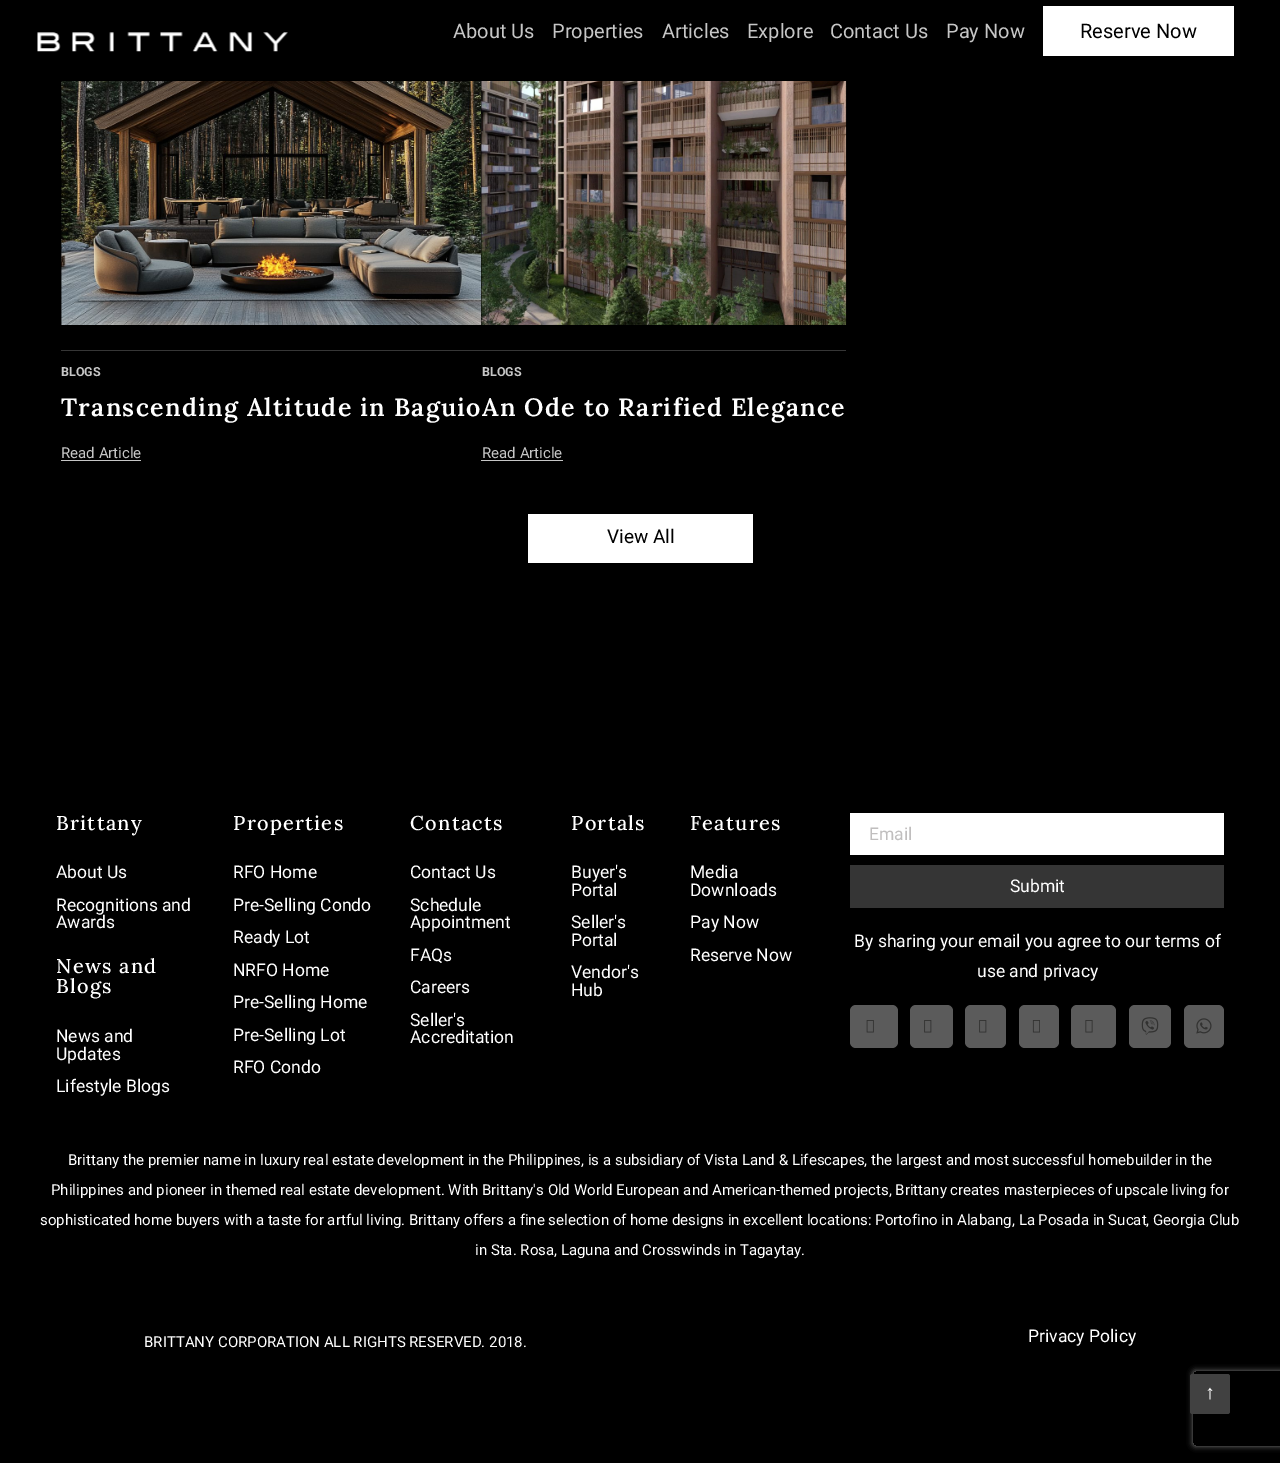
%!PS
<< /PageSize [1280 1463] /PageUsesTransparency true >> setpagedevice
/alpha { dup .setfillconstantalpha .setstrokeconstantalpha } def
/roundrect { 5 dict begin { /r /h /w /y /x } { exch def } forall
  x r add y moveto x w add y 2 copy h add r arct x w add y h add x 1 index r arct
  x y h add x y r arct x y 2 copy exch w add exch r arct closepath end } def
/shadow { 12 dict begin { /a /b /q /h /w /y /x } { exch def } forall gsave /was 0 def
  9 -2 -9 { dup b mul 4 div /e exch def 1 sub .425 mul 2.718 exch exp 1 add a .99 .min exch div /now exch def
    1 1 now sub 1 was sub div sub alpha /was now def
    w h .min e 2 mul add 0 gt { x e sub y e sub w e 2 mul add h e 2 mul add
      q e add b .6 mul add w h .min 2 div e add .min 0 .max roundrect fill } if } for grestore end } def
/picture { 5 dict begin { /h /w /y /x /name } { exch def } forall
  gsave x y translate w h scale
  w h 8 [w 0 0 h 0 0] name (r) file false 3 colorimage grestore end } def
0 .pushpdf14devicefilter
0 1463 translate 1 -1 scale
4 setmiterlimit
0 setgray
0 0 1280 1463 rectfill
(img1.rgb) 37 32 251 20 picture
/Roboto-Regular [20 0 0 -20 0 0] selectfont
0.776 setgray
453 38 moveto (About Us) show
552 38 moveto (Properties) show
662 38 moveto (Articles) show
747 38 moveto (Explore) show
830 38 moveto (Contact Us) show
946 38 moveto (Pay Now) show
1 setgray
1043 6 191 50 rectfill
0 setgray
1080 38 moveto (Reserve Now) show
(img2.rgb) 61 81 421 244 picture
0.212 setgray
61 350 785 1 rectfill
/Roboto-Bold [12.5 0 0 -12.5 0 0] selectfont
0.776 setgray
61 376 moveto (BLOGS) show
/Lora-SemiBold [25 0 0 -25 0 0] selectfont
1 setgray
61 416 moveto 1.25 0 (Transcending Altitude in BaguioAn Ode to Rarified Elegance) ashow
/Roboto-Regular [15 0 0 -15 0 0] selectfont
0.776 setgray
61 458 moveto (Read Article) show
61 460 80 1 rectfill
(img3.rgb) 481 81 366 244 picture
/Roboto-Bold [12.5 0 0 -12.5 0 0] selectfont
482 376 moveto (BLOGS) show
/Roboto-Regular [15 0 0 -15 0 0] selectfont
482 458 moveto (Read Article) show
481 460 82 1 rectfill
1 setgray
528 514 225 49 rectfill
/Roboto-Regular [19 0 0 -19 0 0] selectfont
0 setgray
607 543 moveto (View All) show
/Lora-Medium [20 0 0 -20 0 0] selectfont
1 setgray
56 830 moveto 1.25 0 (Brittany) ashow
/Roboto-Regular [17.5 0 0 -17.5 0 0] selectfont
56 878 moveto (About Us) show
56 911 moveto (Recognitions and) show
56 928 moveto (Awards) show
/Lora-Medium [20 0 0 -20 0 0] selectfont
56 973 moveto 1.25 0 (News and) ashow
56 993 moveto 1.25 0 (Blogs) ashow
/Roboto-Regular [17.5 0 0 -17.5 0 0] selectfont
56 1042 moveto (News and) show
56 1060 moveto (Updates) show
56 1092 moveto (Lifestyle Blogs) show
/Lora-Medium [20 0 0 -20 0 0] selectfont
233 830 moveto 1.25 0 (Properties) ashow
/Roboto-Regular [17.5 0 0 -17.5 0 0] selectfont
233 878 moveto (RFO Home) show
233 911 moveto (Pre-Selling Condo) show
233 943 moveto (Ready Lot) show
233 976 moveto (NRFO Home) show
233 1008 moveto (Pre-Selling Home) show
233 1041 moveto (Pre-Selling Lot) show
233 1073 moveto (RFO Condo) show
/Lora-Medium [20 0 0 -20 0 0] selectfont
410 830 moveto 1.25 0 (Contacts) ashow
/Roboto-Regular [17.5 0 0 -17.5 0 0] selectfont
410 878 moveto (Contact Us) show
410 911 moveto (Schedule) show
410 928 moveto (Appointment) show
410 961 moveto (FAQs) show
410 993 moveto (Careers) show
410 1026 moveto (Seller's) show
410 1043 moveto (Accreditation) show
/Lora-Medium [20 0 0 -20 0 0] selectfont
571 830 moveto 1.25 0 (Portals) ashow
/Roboto-Regular [17.5 0 0 -17.5 0 0] selectfont
571 878 moveto (Buyer's) show
571 896 moveto (Portal) show
571 928 moveto (Seller's) show
571 946 moveto (Portal) show
571 978 moveto (Vendor's) show
571 996 moveto (Hub) show
/Lora-Medium [20 0 0 -20 0 0] selectfont
690 830 moveto 1.25 0 (Features) ashow
/Roboto-Regular [17.5 0 0 -17.5 0 0] selectfont
690 878 moveto (Media) show
690 896 moveto (Downloads) show
690 928 moveto (Pay Now) show
690 961 moveto (Reserve Now) show
850 813 374 42 rectfill
0.753 0.745 0.745 setrgbcolor
869 840 moveto (Email) show
0.208 setgray
850 865 374 43 rectfill
1 setgray
1010 892 moveto (Submit) show
854 947 moveto (By sharing your email you agree to our terms of) show
977 977 moveto (use and privacy) show
0.357 setgray
850 1005 48 43 6 roundrect fill
(img4.rgb) 866 1020 8 13 picture
910 1005 43 43 6 roundrect fill
(img5.rgb) 924 1020 8 13 picture
965 1005 41 43 6 roundrect fill
(img5.rgb) 979 1020 8 13 picture
1019 1005 40 43 6 roundrect fill
(img6.rgb) 1032 1020 8 13 picture
1071 1005 45 43 6 roundrect fill
(img7.rgb) 1085 1020 8 13 picture
1129 1005 42 43 6 roundrect fill
(img8.rgb) 1141 1017 18 18 picture
1184 1005 40 43 6 roundrect fill
(img9.rgb) 1196 1018 16 16 picture
/Roboto-Regular [15 0 0 -15 0 0] selectfont
1 setgray
68 1165 moveto (Brittany the premier name in luxury real estate development in the Philippines, is a subsidiary of Vista Land & Lifescapes, the largest and most successful homebuilder in the) show
51 1195 moveto (Philippines and pioneer in themed real estate development. With Brittany's Old World European and American-themed projects, Brittany creates masterpieces of upscale living for) show
40 1225 moveto (sophisticated home buyers with a taste for artful living. Brittany offers a fine selection of home designs in excellent locations: Portofino in Alabang, La Posada in Sucat, Georgia Club) show
475 1255 moveto (in Sta. Rosa, Laguna and Crosswinds in Tagaytay.) show
144 1347 moveto (BRITTANY CORPORATION ALL RIGHTS RESERVED. 2018.) show
/Roboto-Regular [17.5 0 0 -17.5 0 0] selectfont
1028 1342 moveto (Privacy Policy) show
gsave
newpath 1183 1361 moveto 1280 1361 lineto 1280 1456 lineto 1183 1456 lineto closepath 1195.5 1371 moveto 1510.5 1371 lineto 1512 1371 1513 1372 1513 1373.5 curveto 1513 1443.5 lineto 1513 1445 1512 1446 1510.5 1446 curveto 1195.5 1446 lineto 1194 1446 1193 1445 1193 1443.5 curveto 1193 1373.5 lineto 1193 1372 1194 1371 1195.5 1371 curveto closepath eoclip newpath
0.502 setgray
1193 1371 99 75 2.5 3 1 shadow
grestore
0.255 setgray
1190 1374 40 40 2.5 roundrect fill
/LiberationSans-Regular [20 0 0 -20 0 0] selectfont
1 setgray
1205 1399 moveto (↑) show
.poppdf14devicefilter showpage
